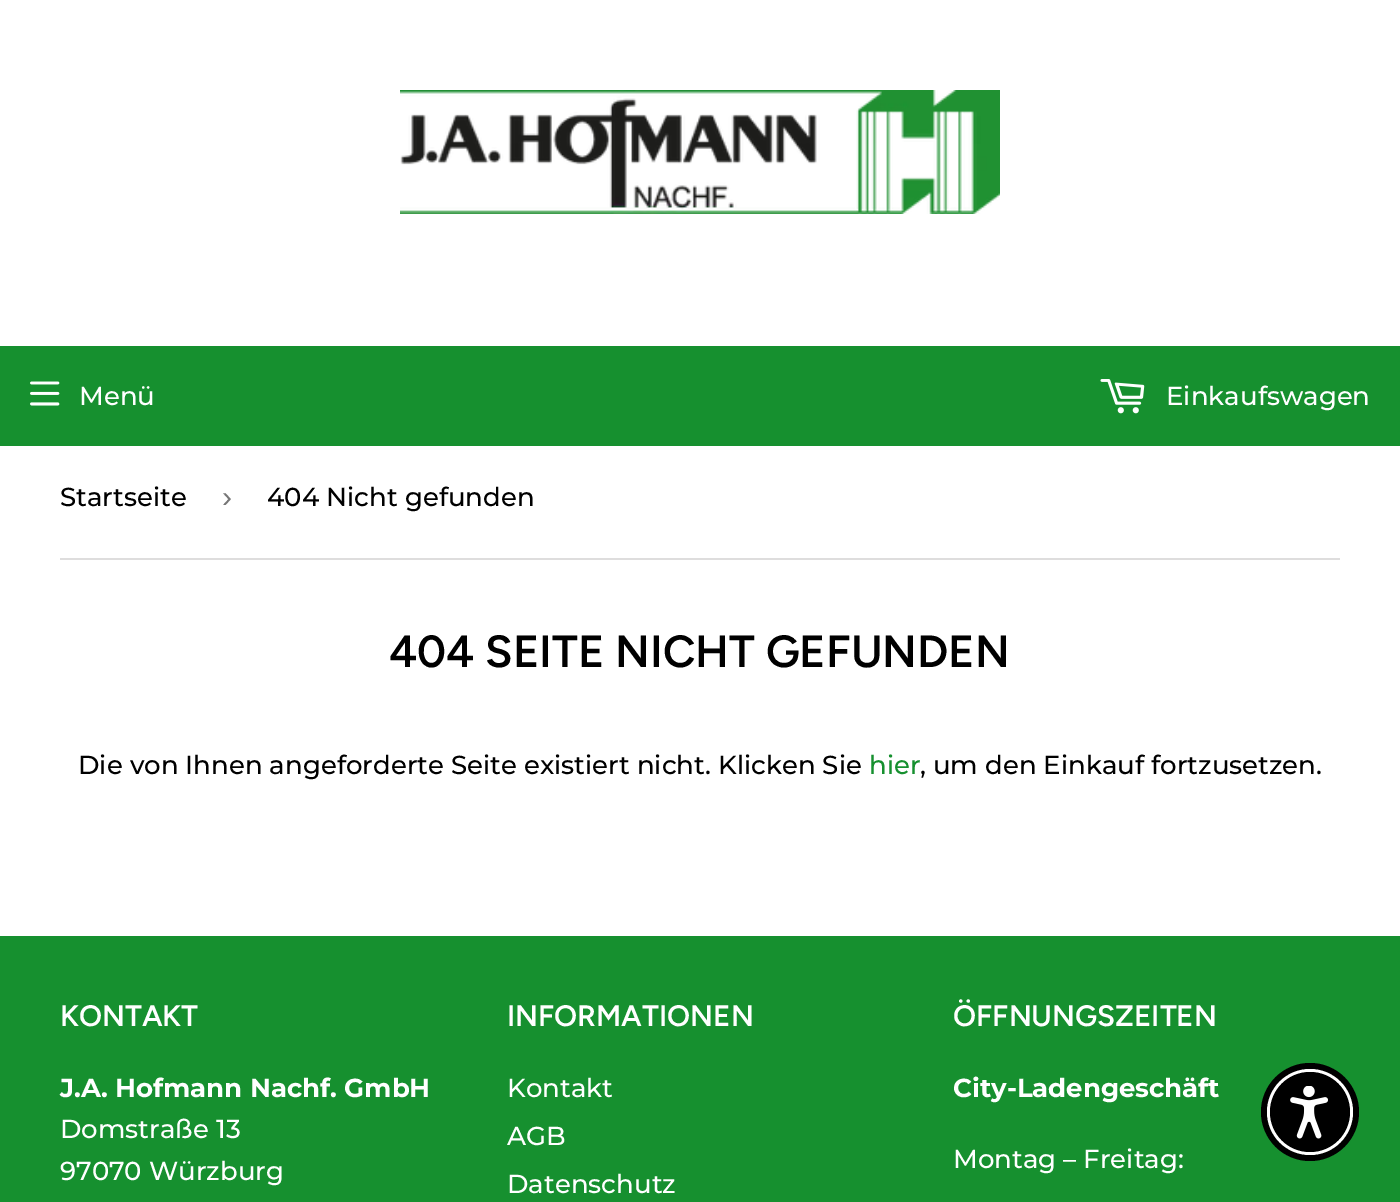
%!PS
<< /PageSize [1400 1202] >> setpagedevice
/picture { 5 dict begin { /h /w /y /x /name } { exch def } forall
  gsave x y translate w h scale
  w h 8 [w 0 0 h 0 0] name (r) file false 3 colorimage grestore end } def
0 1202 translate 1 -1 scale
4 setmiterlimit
1 setgray
0 0 1400 1202 rectfill
(img1.rgb) 400 90 600 124 picture
0.086 0.565 0.184 setrgbcolor
0 346 1400 100 rectfill
(img2.rgb) 30 381 30 25 picture
/Montserrat-Medium [26 0 0 -26 0 0] selectfont
1 setgray
79 405 moveto (Menü) show
(img3.rgb) 1100 379 45 35 picture
1166 405 moveto (Einkaufswagen) show
0.871 0.867 0.867 setrgbcolor
60 558 1280 2 rectfill
0 setgray
60 506 moveto (Startseite) show
/LiberationSans-Regular [30 0 0 -30 0 0] selectfont
0.463 setgray
222 507 moveto (›) show
/Montserrat-Medium [26 0 0 -26 0 0] selectfont
0 setgray
267 506 moveto (404 Nicht gefunden) show
/Figtree-SemiBold [45 0 0 -45 0 0] selectfont
389 667 moveto (404 SEITE NICHT GEFUNDEN) show
/Montserrat-Medium [26 0 0 -26 0 0] selectfont
78 774 moveto (Die von Ihnen angeforderte Seite existiert nicht. Klicken Sie) show
0.086 0.565 0.184 setrgbcolor
869 774 moveto (hier) show
0 setgray
920 774 moveto (, um den Einkauf fortzusetzen.) show
0.086 0.565 0.184 setrgbcolor
0 936 1400 266 rectfill
/Figtree-SemiBold [29.5 0 0 -29.5 0 0] selectfont
1 setgray
60 1026 moveto (KONTAKT) show
/Montserrat-Bold [26 0 0 -26 0 0] selectfont
60 1097 moveto (J.A. Hofmann Nachf. GmbH) show
/Montserrat-Medium [26 0 0 -26 0 0] selectfont
60 1138 moveto (Domstraße 13) show
60 1180 moveto (97070 Würzburg) show
/Figtree-SemiBold [29.5 0 0 -29.5 0 0] selectfont
507 1026 moveto (INFORMATIONEN) show
/Montserrat-Medium [26 0 0 -26 0 0] selectfont
507 1097 moveto (Kontakt) show
507 1145 moveto (AGB) show
507 1193 moveto (Datenschutz) show
/Figtree-SemiBold [29.5 0 0 -29.5 0 0] selectfont
953 1026 moveto (ÖFFNUNGSZEITEN) show
/Montserrat-Bold [26 0 0 -26 0 0] selectfont
953 1097 moveto (City-Ladengeschäft) show
/Montserrat-Medium [26 0 0 -26 0 0] selectfont
953 1168 moveto (Montag – Freitag:) show
0 setgray
newpath 1310 1112 49 0 360 arc closepath fill
1 setgray
newpath 1310 1112 43 0 360 arc closepath fill
0 setgray
newpath 1310 1112 40 0 360 arc closepath fill
(img4.rgb) 1290 1086 38 53 picture
showpage
